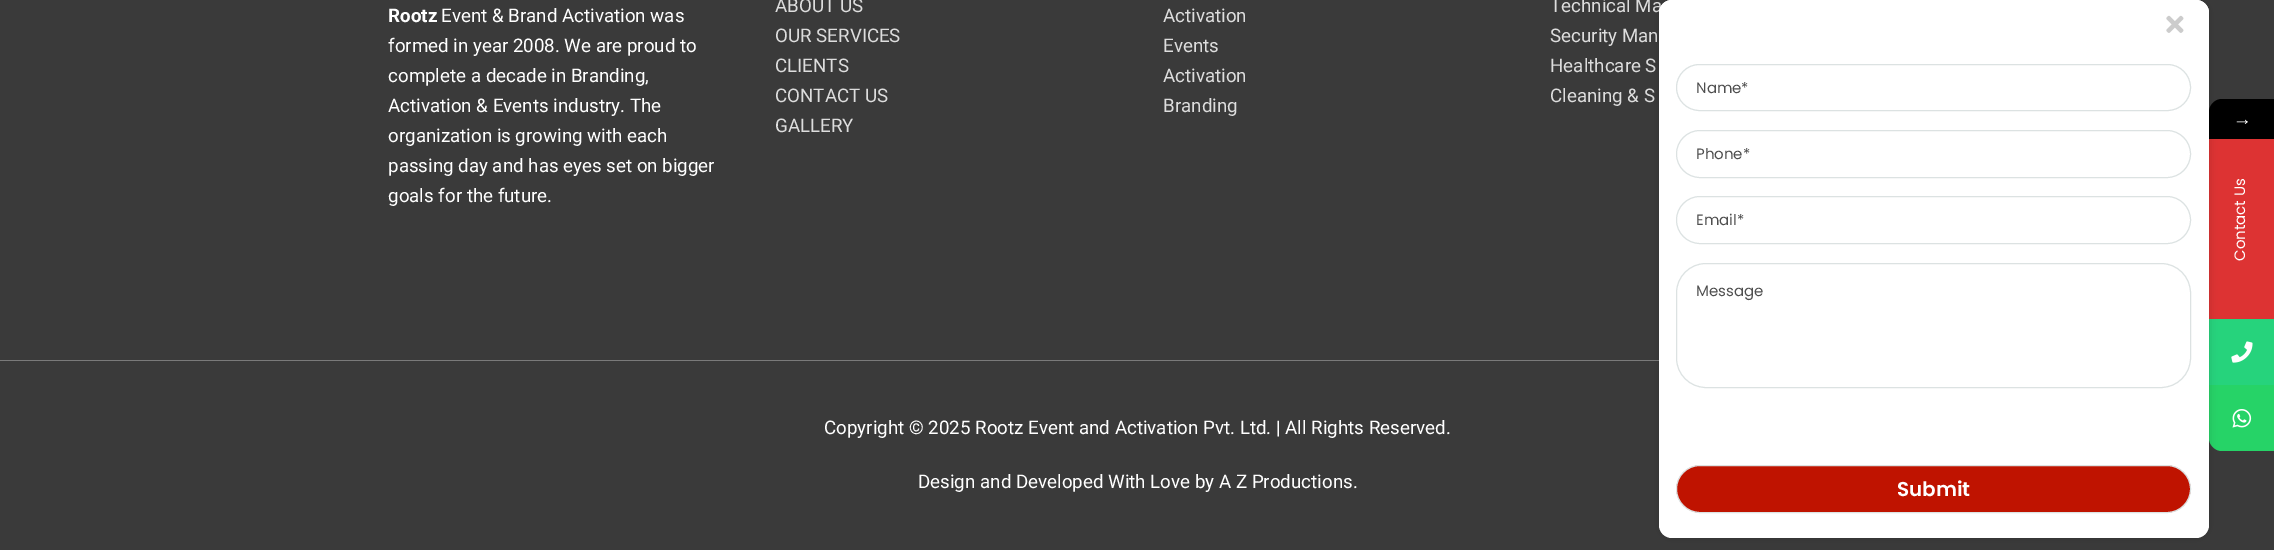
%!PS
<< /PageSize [2274 550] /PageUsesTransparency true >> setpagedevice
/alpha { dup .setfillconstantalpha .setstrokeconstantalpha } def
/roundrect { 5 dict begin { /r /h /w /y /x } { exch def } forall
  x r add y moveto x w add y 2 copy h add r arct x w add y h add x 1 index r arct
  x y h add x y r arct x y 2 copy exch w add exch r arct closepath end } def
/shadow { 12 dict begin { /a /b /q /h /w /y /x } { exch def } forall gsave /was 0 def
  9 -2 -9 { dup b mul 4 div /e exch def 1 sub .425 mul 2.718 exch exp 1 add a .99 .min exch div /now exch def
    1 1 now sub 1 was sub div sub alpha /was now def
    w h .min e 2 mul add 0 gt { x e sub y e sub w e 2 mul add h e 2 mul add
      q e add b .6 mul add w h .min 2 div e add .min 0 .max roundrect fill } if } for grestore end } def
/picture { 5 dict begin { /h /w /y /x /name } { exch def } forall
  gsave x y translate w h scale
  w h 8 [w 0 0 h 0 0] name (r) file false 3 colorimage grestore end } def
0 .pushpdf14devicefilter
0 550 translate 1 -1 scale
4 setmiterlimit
0.227 setgray
0 0 2274 550 rectfill
/Roboto-Bold [18.75 0 0 -18.75 0 0] selectfont
1 setgray
388 22 moveto (Rootz) show
/Roboto-Regular [18.75 0 0 -18.75 0 0] selectfont
441 22 moveto (Event & Brand Activation was) show
388 52 moveto (formed in year 2008. We are proud to) show
388 82 moveto (complete a decade in Branding,) show
388 112 moveto (Activation & Events industry. The) show
388 142 moveto (organization is growing with each) show
388 172 moveto (passing day and has eyes set on bigger) show
388 202 moveto (goals for the future.) show
0.867 setgray
775 12 moveto (ABOUT US) show
775 42 moveto (OUR SERVICES) show
775 72 moveto (CLIENTS) show
775 102 moveto (CONTACT US) show
775 132 moveto (GALLERY) show
1163 22 moveto (Activation) show
1163 52 moveto (Events) show
1163 82 moveto (Activation) show
1163 112 moveto (Branding) show
1550 12 moveto (Technical Ma) show
1550 42 moveto (Security Man) show
1550 72 moveto (Healthcare S) show
1550 102 moveto (Cleaning & S) show
0.478 setgray
0 360 1659 1 rectfill
1 setgray
824 434 moveto (Copyright © 2025 Rootz Event and Activation Pvt. Ltd. | All Rights Reserved.) show
918 488 moveto (Design and Developed With Love by A Z Productions.) show
0.867 0.2 0.2 setrgbcolor
2209 139 65 180 rectfill
0 setgray
newpath 2222 99 moveto 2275 99 lineto 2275 139 lineto 2209 139 lineto 2209 112 lineto 2209 105 2215 99 2222 99 curveto closepath fill
0.149 0.827 0.486 setrgbcolor
2209 319 65 66 rectfill
0.149 0.827 0.404 setrgbcolor
newpath 2209 385 moveto 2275 385 lineto 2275 451 lineto 2222 451 lineto 2215 451 2209 445 2209 438 curveto closepath fill
0 setgray
1659 0 550 538 13 4 0.16 shadow
1 setgray
1659 0 550 538 13 roundrect fill
newpath 1672 0 moveto 2196 0 lineto 2203 0 2209 6 2209 13 curveto 2209 45 lineto 1659 45 lineto 1659 13 lineto 1659 6 1665 0 1672 0 curveto closepath fill
(img1.rgb) 2166 15 18 18 picture
0.863 0.886 0.886 setrgbcolor
1676.5 64.5 514 46 23 roundrect stroke
/Poppins-Regular [15 0 0 -15 0 0] selectfont
0.31 setgray
1696 93 moveto (Name*) show
0.863 0.886 0.886 setrgbcolor
1676.5 130.5 514 47 23.5 roundrect stroke
0.31 setgray
1696 159 moveto (Phone*) show
0.863 0.886 0.886 setrgbcolor
1676.5 196.5 514 47 23.5 roundrect stroke
0.31 setgray
1696 225 moveto (Email*) show
0.863 0.886 0.886 setrgbcolor
1676.5 263.5 514 124 29.5 roundrect stroke
0.31 setgray
1696 296 moveto (Message) show
0.749 0.075 0 setrgbcolor
1676.5 465.5 514 47 23.5 roundrect gsave fill grestore
0.863 0.886 0.886 setrgbcolor
stroke
/Poppins-SemiBold [20 0 0 -20 0 0] selectfont
1 setgray
1897 496 moveto (Submit) show
/Poppins-Regular [15 0 0 -15 0 0] selectfont
gsave 2245 261 translate -90 rotate 0 0 moveto (Contact Us) show grestore
/LiberationSerif-Regular [18.75 0 0 -18.75 0 0] selectfont
2233 125 moveto (→) show
(img2.rgb) 2231 341 22 22 picture
(img3.rgb) 2232 409 20 19 picture
.poppdf14devicefilter showpage
